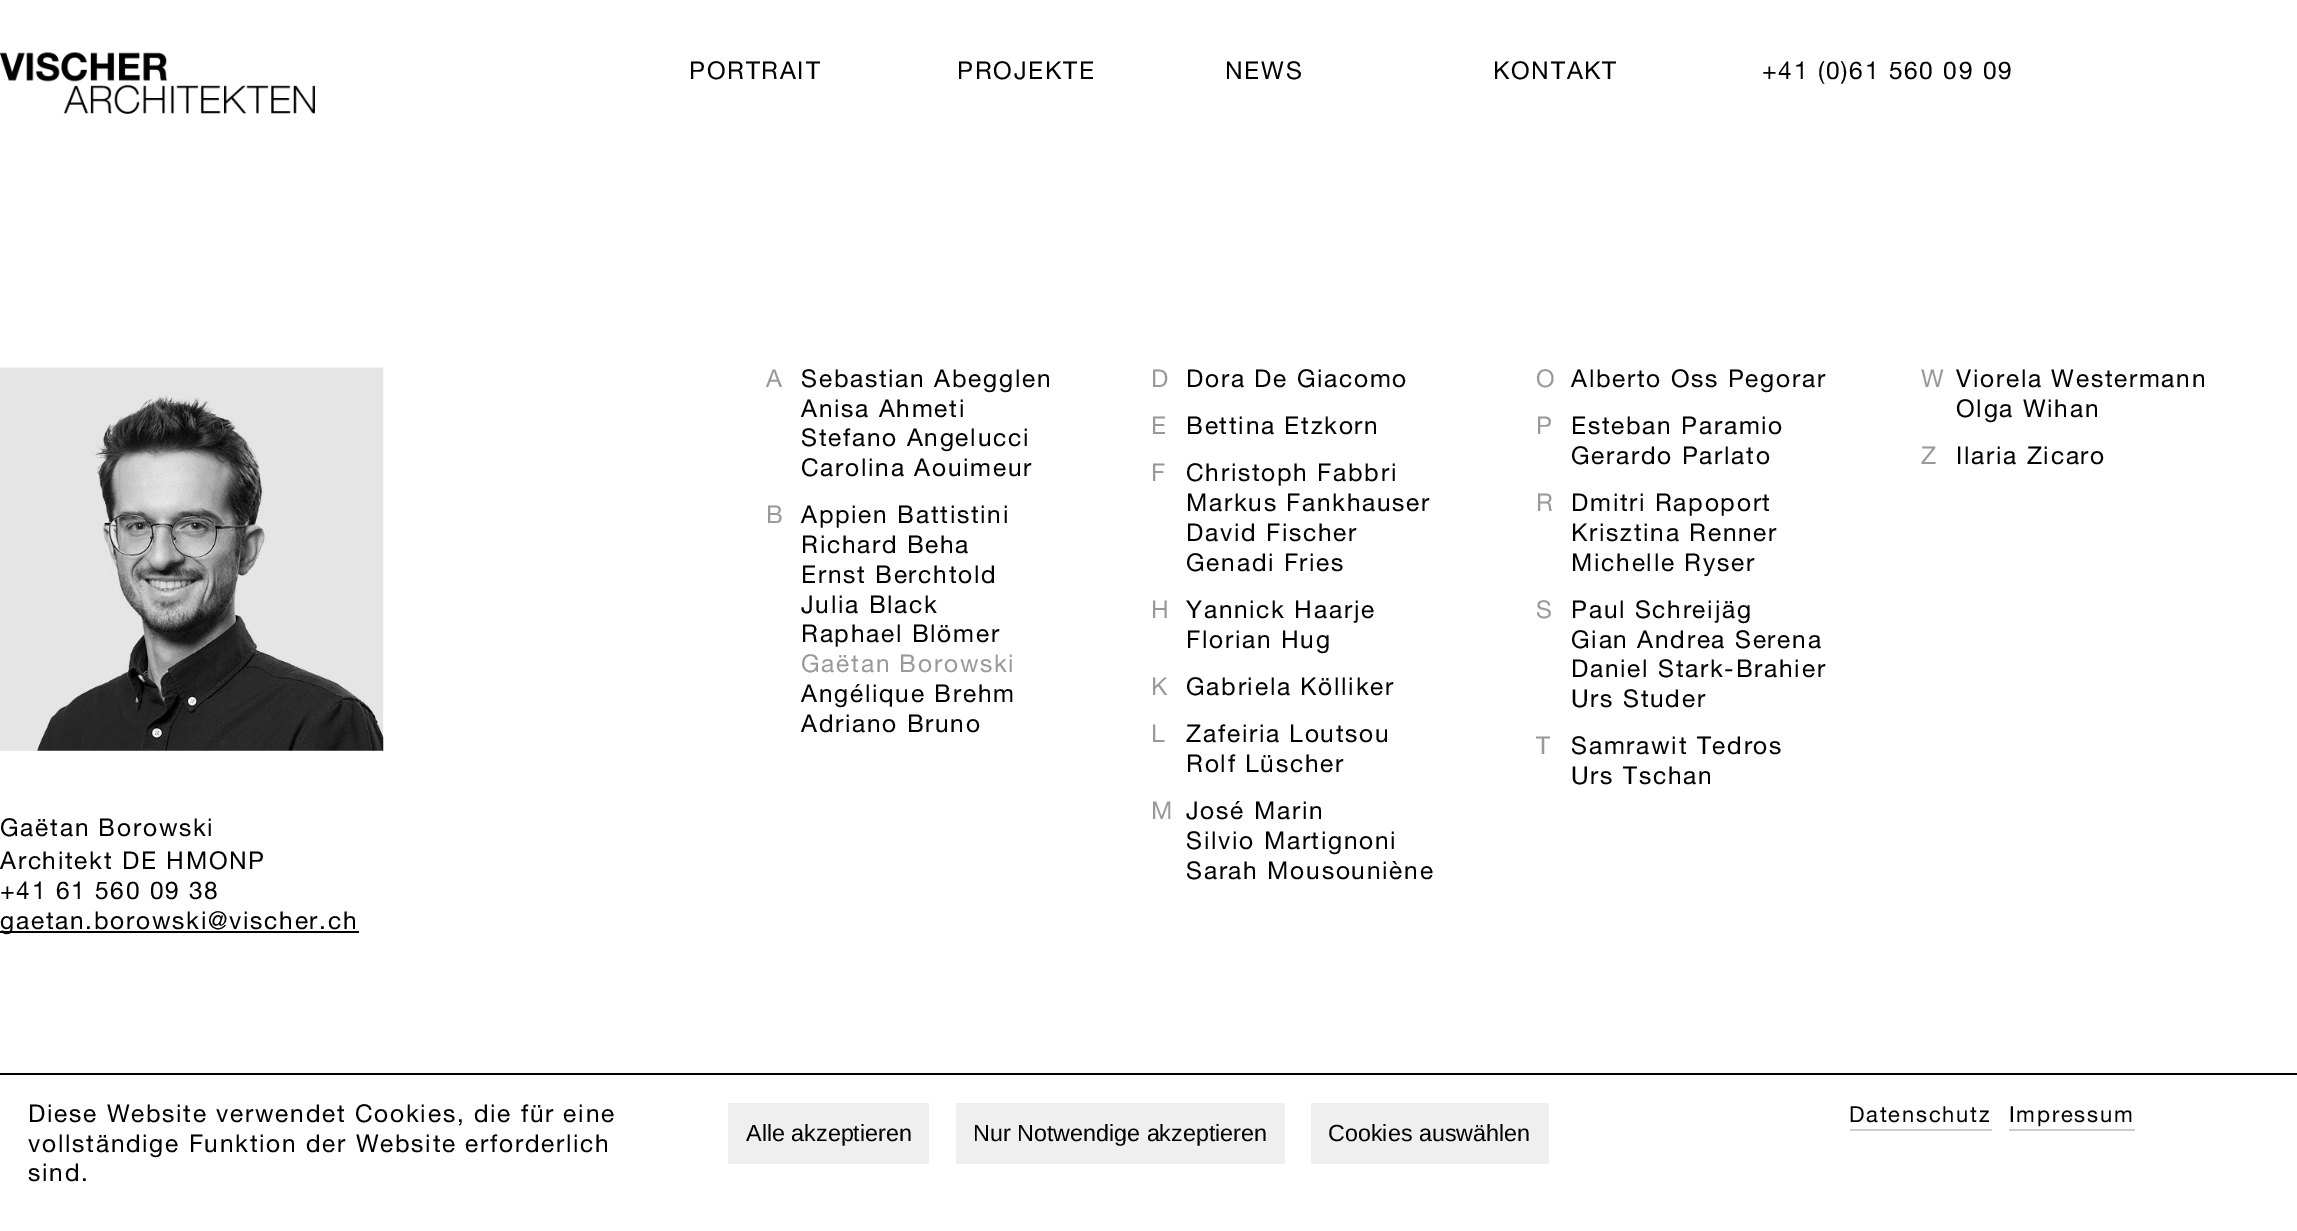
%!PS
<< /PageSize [2297 1231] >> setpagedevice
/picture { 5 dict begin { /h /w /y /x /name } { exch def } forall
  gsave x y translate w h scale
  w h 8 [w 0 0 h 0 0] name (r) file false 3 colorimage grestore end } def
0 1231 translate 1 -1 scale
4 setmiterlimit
1 setgray
0 0 2297 1231 rectfill
(img1.rgb) 0 52 315 62 picture
/HelveticaNeue-Regular [24.5 0 0 -24.5 0 0] selectfont
0 setgray
689 79 moveto 1.75 0 (PORTRAIT) ashow
957 79 moveto 1.75 0 (PROJEKTE) ashow
1225 79 moveto 1.75 0 (NEWS) ashow
1493 79 moveto 1.75 0 (KONTAKT) ashow
1762 79 moveto 1.75 0 (+41 \(0\)61 560 09 09) ashow
(img2.rgb) 0 367 384 384 picture
0 836 moveto 1.75 0 (Gaëtan Borowski) ashow
0 869 moveto 1.75 0 (Architekt DE HMONP) ashow
0 899 moveto 1.75 0 (+41 61 560 09 38) ashow
0 931 359 2 rectfill
0 929 moveto 1.75 0 (gaetan.borowski@vischer.ch) ashow
0.6 setgray
766 387 moveto 1.75 0 (A) ashow
0 setgray
801 387 moveto 1.75 0 (Sebastian Abegglen) ashow
801 417 moveto 1.75 0 (Anisa Ahmeti) ashow
801 446 moveto 1.75 0 (Stefano Angelucci) ashow
801 476 moveto 1.75 0 (Carolina Aouimeur) ashow
0.6 setgray
766 523 moveto 1.75 0 (B) ashow
0 setgray
801 523 moveto 1.75 0 (Appien Battistini) ashow
801 553 moveto 1.75 0 (Richard Beha) ashow
801 583 moveto 1.75 0 (Ernst Berchtold) ashow
801 613 moveto 1.75 0 (Julia Black) ashow
801 642 moveto 1.75 0 (Raphael Blömer) ashow
0.6 setgray
801 672 moveto 1.75 0 (Gaëtan Borowski) ashow
0 setgray
801 702 moveto 1.75 0 (Angélique Brehm) ashow
801 732 moveto 1.75 0 (Adriano Bruno) ashow
0.6 setgray
1151 387 moveto 1.75 0 (D) ashow
0 setgray
1186 387 moveto 1.75 0 (Dora De Giacomo) ashow
0.6 setgray
1151 434 moveto 1.75 0 (E) ashow
0 setgray
1186 434 moveto 1.75 0 (Bettina Etzkorn) ashow
0.6 setgray
1151 481 moveto 1.75 0 (F) ashow
0 setgray
1186 481 moveto 1.75 0 (Christoph Fabbri) ashow
1186 511 moveto 1.75 0 (Markus Fankhauser) ashow
1186 541 moveto 1.75 0 (David Fischer) ashow
1186 571 moveto 1.75 0 (Genadi Fries) ashow
0.6 setgray
1151 618 moveto 1.75 0 (H) ashow
0 setgray
1186 618 moveto 1.75 0 (Yannick Haarje) ashow
1186 648 moveto 1.75 0 (Florian Hug) ashow
0.6 setgray
1151 695 moveto 1.75 0 (K) ashow
0 setgray
1186 695 moveto 1.75 0 (Gabriela Kölliker) ashow
0.6 setgray
1151 742 moveto 1.75 0 (L) ashow
0 setgray
1186 742 moveto 1.75 0 (Zafeiria Loutsou) ashow
1186 772 moveto 1.75 0 (Rolf Lüscher) ashow
0.6 setgray
1151 819 moveto 1.75 0 (M) ashow
0 setgray
1186 819 moveto 1.75 0 (José Marin) ashow
1186 849 moveto 1.75 0 (Silvio Martignoni) ashow
1186 879 moveto 1.75 0 (Sarah Mousouniène) ashow
0.6 setgray
1536 387 moveto 1.75 0 (O) ashow
0 setgray
1571 387 moveto 1.75 0 (Alberto Oss Pegorar) ashow
0.6 setgray
1536 434 moveto 1.75 0 (P) ashow
0 setgray
1571 434 moveto 1.75 0 (Esteban Paramio) ashow
1571 464 moveto 1.75 0 (Gerardo Parlato) ashow
0.6 setgray
1536 511 moveto 1.75 0 (R) ashow
0 setgray
1571 511 moveto 1.75 0 (Dmitri Rapoport) ashow
1571 541 moveto 1.75 0 (Krisztina Renner) ashow
1571 571 moveto 1.75 0 (Michelle Ryser) ashow
0.6 setgray
1536 618 moveto 1.75 0 (S) ashow
0 setgray
1571 618 moveto 1.75 0 (Paul Schreijäg) ashow
1571 648 moveto 1.75 0 (Gian Andrea Serena) ashow
1571 677 moveto 1.75 0 (Daniel Stark-Brahier) ashow
1571 707 moveto 1.75 0 (Urs Studer) ashow
0.6 setgray
1536 754 moveto 1.75 0 (T) ashow
0 setgray
1571 754 moveto 1.75 0 (Samrawit Tedros) ashow
1571 784 moveto 1.75 0 (Urs Tschan) ashow
0.6 setgray
1921 387 moveto 1.75 0 (W) ashow
0 setgray
1956 387 moveto 1.75 0 (Viorela Westermann) ashow
1956 417 moveto 1.75 0 (Olga Wihan) ashow
0.6 setgray
1921 464 moveto 1.75 0 (Z) ashow
0 setgray
1956 464 moveto 1.75 0 (Ilaria Zicaro) ashow
0 1073 2297 2 rectfill
28 1122 moveto 1.75 0 (Diese Website verwendet Cookies, die für eine) ashow
28 1152 moveto 1.75 0 (vollständige Funktion der Website erforderlich) ashow
28 1181 moveto 1.75 0 (sind.) ashow
/HelveticaNeue-Regular [22 0 0 -22 0 0] selectfont
1849 1122 moveto 1.75 0 (Datenschutz) ashow
0.8 setgray
1850 1129 142 2 rectfill
0 setgray
2009 1122 moveto 1.75 0 (Impressum) ashow
0.8 setgray
2009 1129 126 2 rectfill
0.937 setgray
728 1103 201 61 rectfill
/LiberationSans-Regular [23.3 0 0 -23.3 0 0] selectfont
0 setgray
746 1141 moveto (Alle akzeptieren) show
0.937 setgray
956 1103 329 61 rectfill
0 setgray
973 1141 moveto (Nur Notwendige akzeptieren) show
0.937 setgray
1311 1103 238 61 rectfill
0 setgray
1328 1141 moveto (Cookies auswählen) show
showpage
